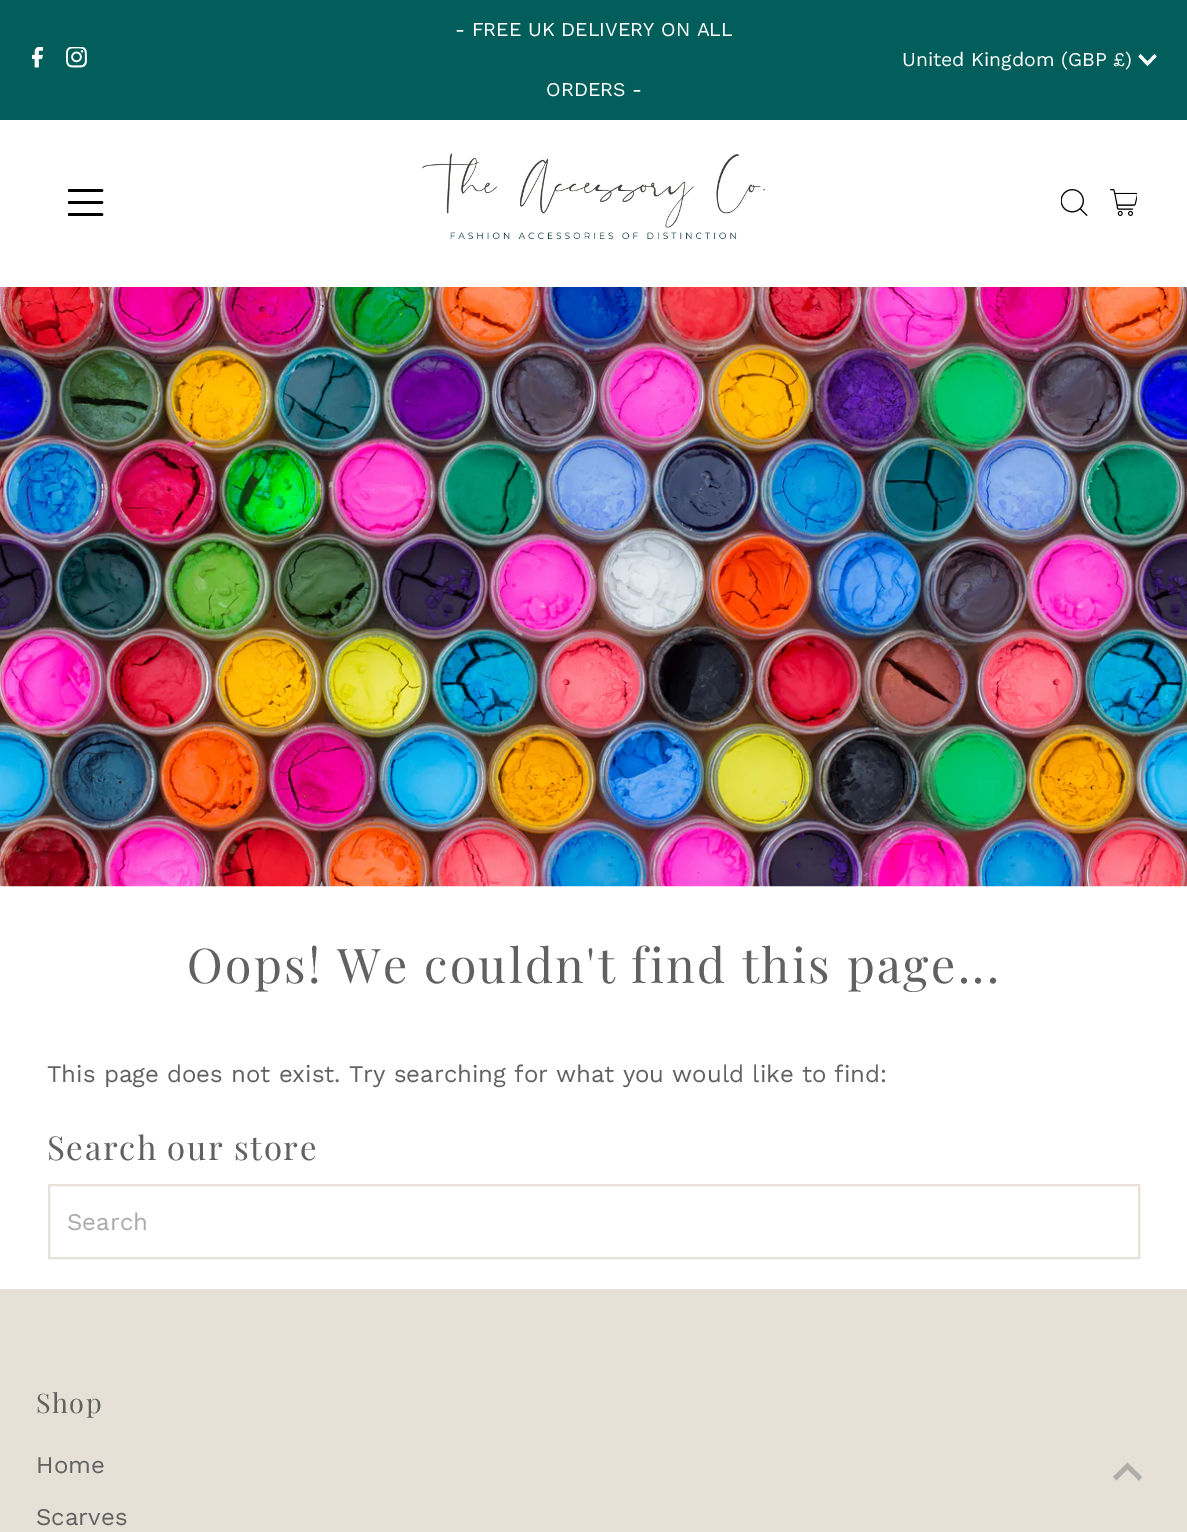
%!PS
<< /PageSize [1187 1532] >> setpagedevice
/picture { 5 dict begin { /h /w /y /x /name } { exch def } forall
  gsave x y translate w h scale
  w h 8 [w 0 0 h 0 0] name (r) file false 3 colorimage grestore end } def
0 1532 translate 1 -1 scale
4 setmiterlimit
1 setgray
0 0 1187 1532 rectfill
0.008 0.369 0.353 setrgbcolor
0 0 1187 120 rectfill
(img1.rgb) 32 47 12 21 picture
(img2.rgb) 66 47 21 21 picture
/WorkSans-Regular [19.5 0 0 -19.5 0 0] selectfont
1 setgray
455 36 moveto (- FREE UK DELIVERY ON ALL) show
546 96 moveto (ORDERS -) show
902 66 moveto (United Kingdom \(GBP £\)) show
newpath 1154.5 54 moveto 1147.5 61.5 lineto 1140.5 54 lineto 1138.5 56.5 lineto 1147.5 66 lineto 1156.5 56.5 lineto closepath fill
(img3.rgb) 68 189 36 27 picture
(img4.rgb) 422 153 343 87 picture
(img5.rgb) 1061 189 27 27 picture
(img6.rgb) 1110 189 27 27 picture
(img7.rgb) 0 287 1187 600 picture
/PlayfairDisplay-Regular [48 0 0 -48 0 0] selectfont
0.38 setgray
187 983 moveto 2.4 0 (Oops! We couldn't find this page...) ashow
/WorkSans-Regular [24 0 0 -24 0 0] selectfont
47 1082 moveto (This page does not exist. Try searching for what you would like to find:) show
/PlayfairDisplay-Regular [33 0 0 -33 0 0] selectfont
47 1160 moveto 1.6 0 (Search our store) ashow
0.902 0.878 0.843 setrgbcolor
2 setlinewidth
49 1185 1090 73 rectstroke
/WorkSans-Regular [24 0 0 -24 0 0] selectfont
0.667 setgray
67 1230 moveto (Search) show
0.902 0.878 0.843 setrgbcolor
0 1289 1187 243 rectfill
/PlayfairDisplay-Regular [27 0 0 -27 0 0] selectfont
0.38 setgray
36 1413 moveto 1.5 0 (Shop) ashow
/WorkSans-Regular [24 0 0 -24 0 0] selectfont
36 1473 moveto (Home) show
36 1525 moveto (Scarves) show
0.694 0.678 0.659 setrgbcolor
newpath 1127.5 1462.5 moveto 1113 1477 lineto 1116.5 1480.5 lineto 1127.5 1469.5 lineto 1139 1480.5 lineto 1142 1477 lineto closepath fill
showpage
